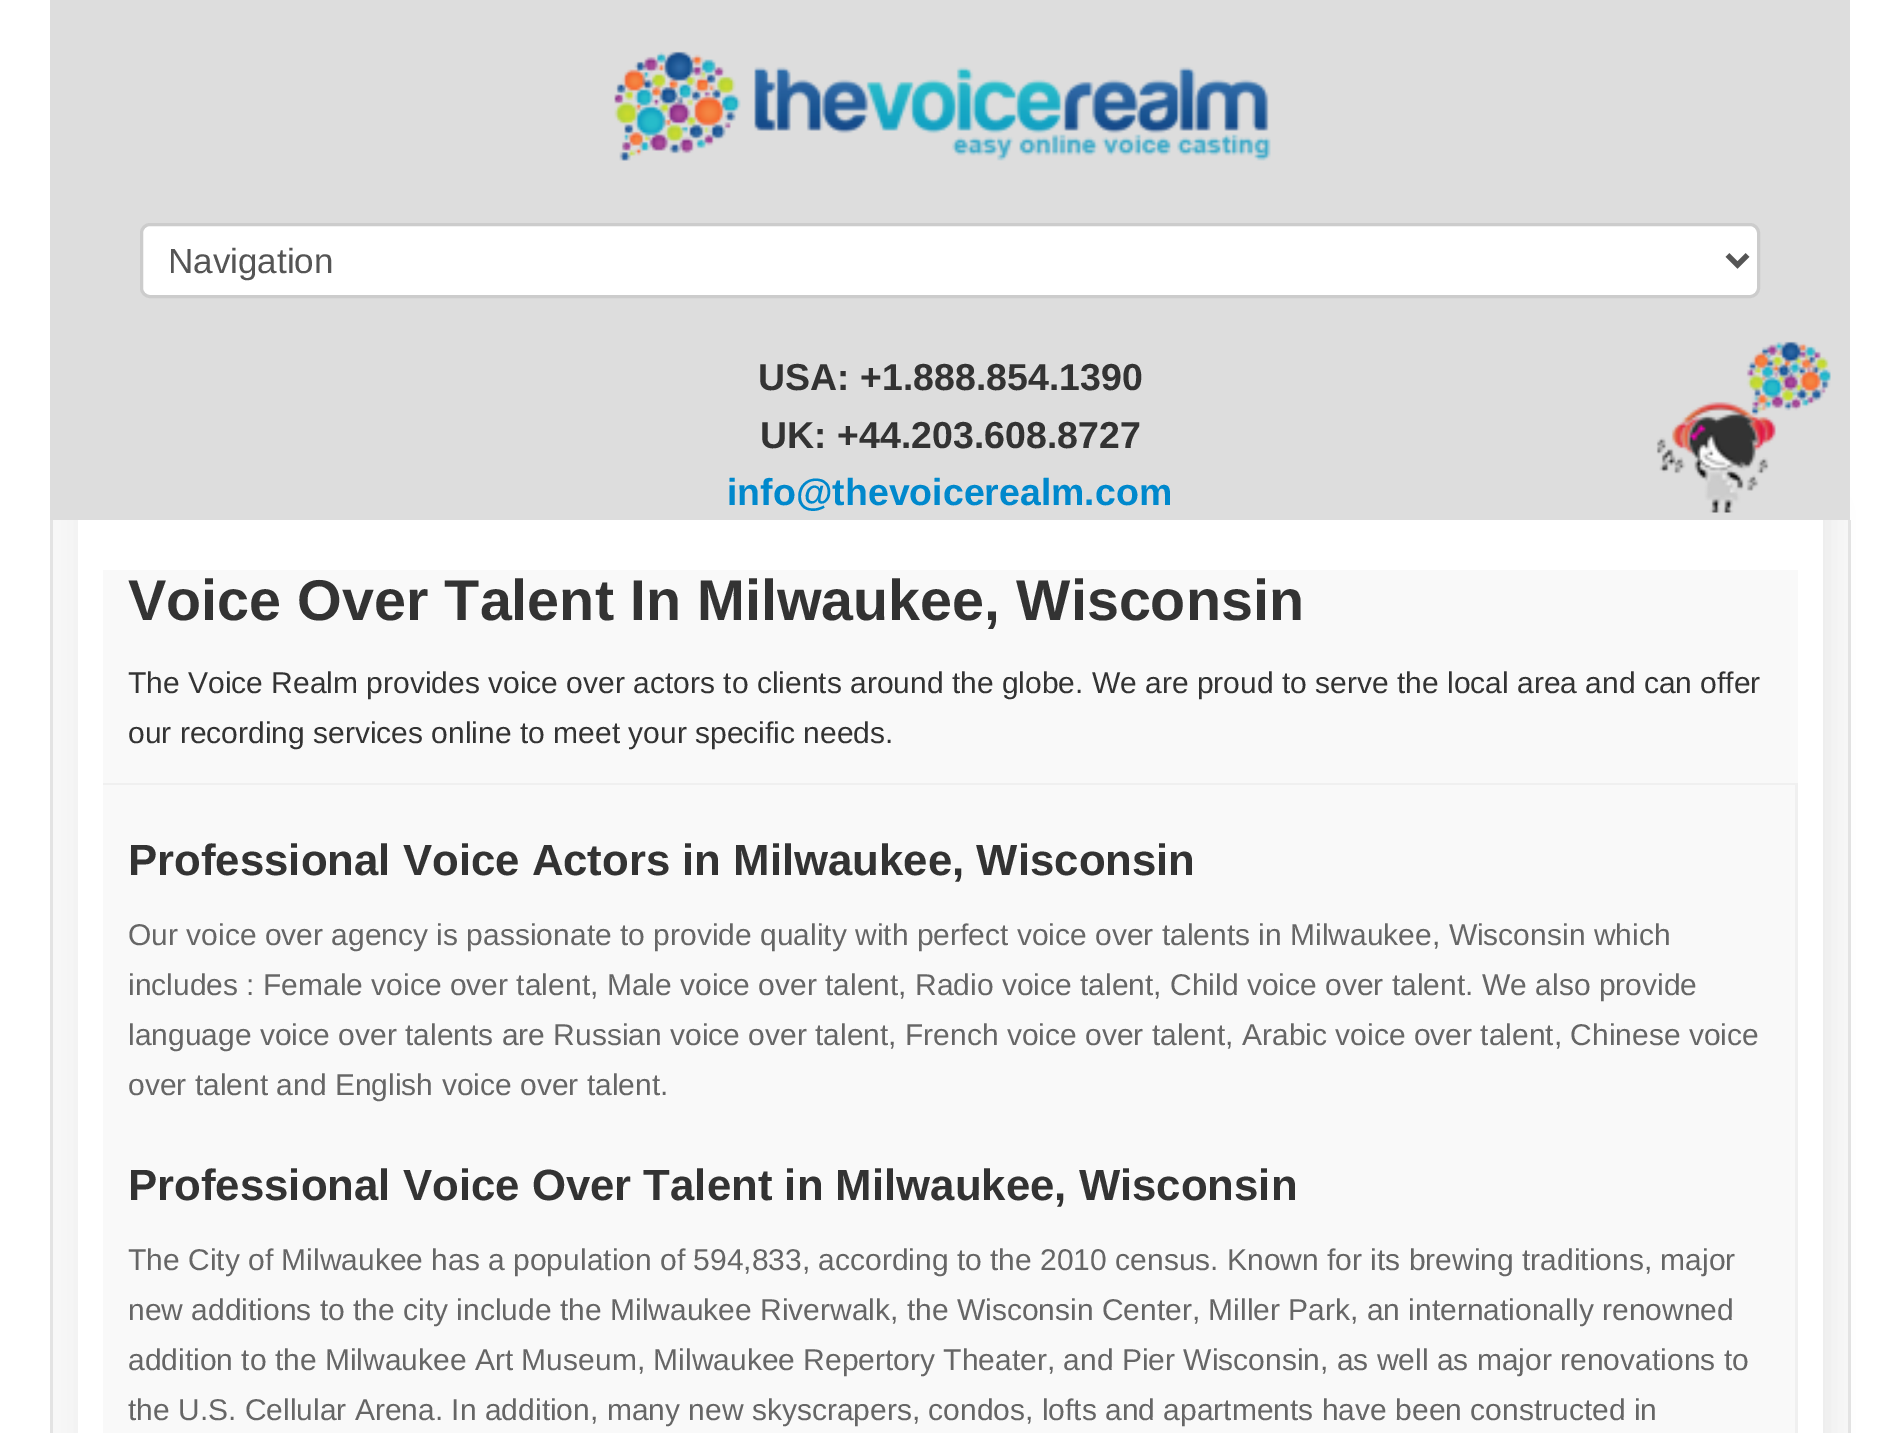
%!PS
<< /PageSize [1899 1433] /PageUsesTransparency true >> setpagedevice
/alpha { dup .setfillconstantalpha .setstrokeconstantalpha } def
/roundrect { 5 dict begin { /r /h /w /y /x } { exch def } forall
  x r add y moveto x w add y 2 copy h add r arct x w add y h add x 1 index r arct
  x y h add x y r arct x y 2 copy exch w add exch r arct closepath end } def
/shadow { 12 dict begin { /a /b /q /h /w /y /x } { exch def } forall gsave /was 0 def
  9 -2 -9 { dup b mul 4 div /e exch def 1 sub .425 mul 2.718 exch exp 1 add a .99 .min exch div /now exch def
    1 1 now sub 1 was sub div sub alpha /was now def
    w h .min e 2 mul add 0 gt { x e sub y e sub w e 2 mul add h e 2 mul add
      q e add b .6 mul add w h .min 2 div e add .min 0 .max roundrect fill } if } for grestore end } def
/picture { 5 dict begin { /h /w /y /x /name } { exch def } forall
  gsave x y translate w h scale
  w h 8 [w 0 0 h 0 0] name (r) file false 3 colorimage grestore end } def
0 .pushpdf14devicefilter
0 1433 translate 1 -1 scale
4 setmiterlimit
1 setgray
0 0 1899 1433 rectfill
0.969 setgray
53 520 1795 913 rectfill
0.89 setgray
1848 520 3 913 rectfill
50 520 3 913 rectfill
0.918 setgray
83 508 1745 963 0 12.5 1 shadow
0.867 setgray
50 0 1800 520 rectfill
(img1.rgb) 614 51 657 110 picture
1 setgray
141.5 224.5 1617 72 8.5 roundrect gsave fill grestore
0.8 setgray
3 setlinewidth
stroke
0.333 setgray
5 setlinewidth
newpath 1727.5 255 moveto 1737.5 265 lineto 1747.5 255 lineto stroke
/LiberationSans-Regular [35 0 0 -35 0 0] selectfont
168 273 moveto (Navigation) show
(img2.rgb) 1656 341 175 172 picture
/LiberationSans-Bold [37.5 0 0 -37.5 0 0] selectfont
0.2 setgray
758 390 moveto (USA: +1.888.854.1390) show
760 448 moveto (UK: +44.203.608.8727) show
0 0.533 0.8 setrgbcolor
727 505 moveto (info@thevoicerealm.com) show
1 setgray
78 520 1745 913 rectfill
0.976 setgray
103 570 1695 213 rectfill
0.941 setgray
103 783 1695 2 rectfill
/LiberationSans-Bold [57.5 0 0 -57.5 0 0] selectfont
0.2 setgray
128 620 moveto (Voice Over Talent In Milwaukee, Wisconsin) show
/LiberationSans-Regular [30 0 0 -30 0 0] selectfont
128 693 moveto (The Voice Realm provides voice over actors to clients around the globe. We are proud to serve the local area and can offer) show
128 743 moveto (our recording services online to meet your specific needs.) show
0.976 setgray
103 785 1692 648 rectfill
0.941 setgray
1795 785 3 648 rectfill
/LiberationSans-Bold [43.75 0 0 -43.75 0 0] selectfont
0.2 setgray
128 875 moveto (Professional Voice Actors in Milwaukee, Wisconsin) show
/LiberationSans-Regular [30 0 0 -30 0 0] selectfont
0.4 setgray
128 945 moveto (Our voice over agency is passionate to provide quality with perfect voice over talents in Milwaukee, Wisconsin which) show
128 995 moveto (includes : Female voice over talent, Male voice over talent, Radio voice talent, Child voice over talent. We also provide) show
128 1045 moveto (language voice over talents are Russian voice over talent, French voice over talent, Arabic voice over talent, Chinese voice) show
128 1095 moveto (over talent and English voice over talent.) show
/LiberationSans-Bold [43.75 0 0 -43.75 0 0] selectfont
0.2 setgray
128 1200 moveto (Professional Voice Over Talent in Milwaukee, Wisconsin) show
/LiberationSans-Regular [30 0 0 -30 0 0] selectfont
0.4 setgray
128 1270 moveto (The City of Milwaukee has a population of 594,833, according to the 2010 census. Known for its brewing traditions, major) show
128 1320 moveto (new additions to the city include the Milwaukee Riverwalk, the Wisconsin Center, Miller Park, an internationally renowned) show
128 1370 moveto (addition to the Milwaukee Art Museum, Milwaukee Repertory Theater, and Pier Wisconsin, as well as major renovations to) show
128 1420 moveto (the U.S. Cellular Arena. In addition, many new skyscrapers, condos, lofts and apartments have been constructed in) show
.poppdf14devicefilter showpage
